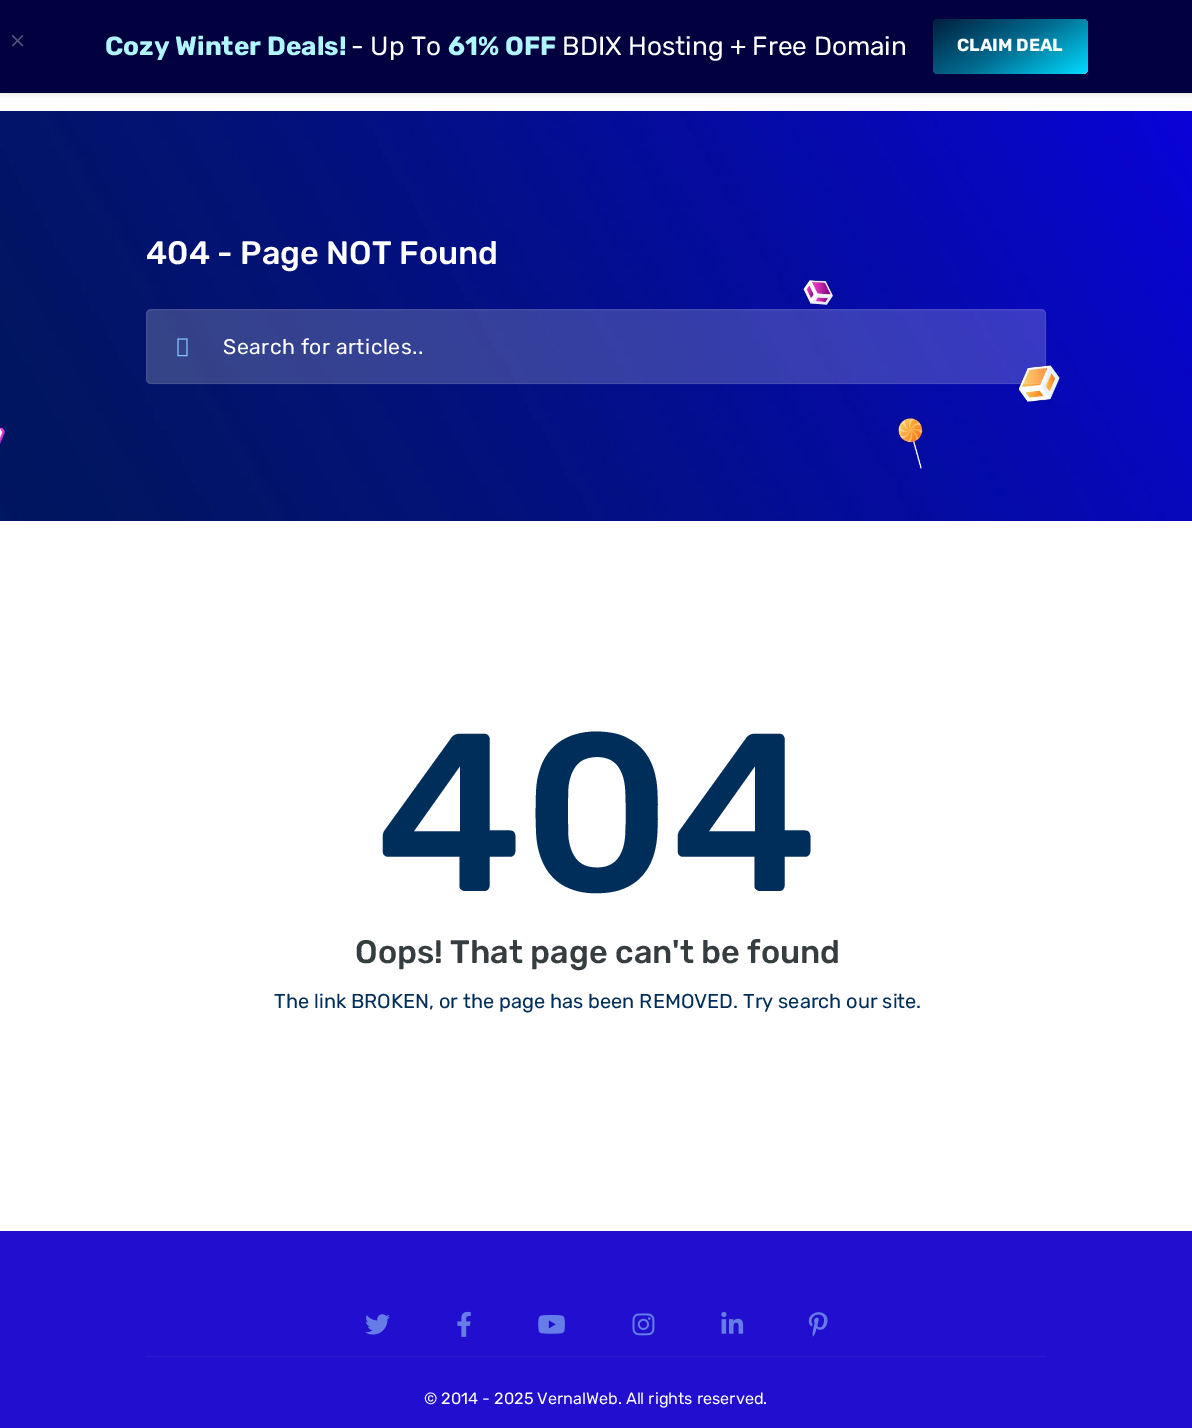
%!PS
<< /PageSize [1192 1428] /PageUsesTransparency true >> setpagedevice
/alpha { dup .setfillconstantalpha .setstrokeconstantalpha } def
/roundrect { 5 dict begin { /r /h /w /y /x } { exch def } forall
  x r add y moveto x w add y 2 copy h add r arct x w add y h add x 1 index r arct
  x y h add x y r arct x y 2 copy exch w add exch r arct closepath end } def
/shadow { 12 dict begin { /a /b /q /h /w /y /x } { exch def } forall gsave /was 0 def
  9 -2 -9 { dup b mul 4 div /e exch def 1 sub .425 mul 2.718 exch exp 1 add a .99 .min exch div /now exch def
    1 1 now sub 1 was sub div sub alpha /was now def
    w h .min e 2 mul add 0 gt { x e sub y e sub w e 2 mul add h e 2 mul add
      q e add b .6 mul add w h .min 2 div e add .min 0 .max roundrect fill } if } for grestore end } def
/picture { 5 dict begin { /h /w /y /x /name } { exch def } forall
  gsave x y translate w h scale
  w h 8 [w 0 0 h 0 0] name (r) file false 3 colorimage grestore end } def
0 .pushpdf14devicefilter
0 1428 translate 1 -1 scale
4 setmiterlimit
1 setgray
0 0 1192 1428 rectfill
0 setgray
0 3 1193 92 0 3 0.1 shadow
0.004 0.004 0.247 setrgbcolor
0 0 1192 93 rectfill
/Rubik-Light [28 0 0 -28 0 0] selectfont
0.322 0.322 0.486 setrgbcolor
10 49 moveto (×) show
/Rubik-Bold [26.25 0 0 -26.25 0 0] selectfont
0.69 0.965 1 setrgbcolor
105 55 moveto (Cozy Winter Deals!) show
/Rubik-Regular [26.25 0 0 -26.25 0 0] selectfont
1 setgray
351 55 moveto (- Up To) show
/Rubik-Bold [26.25 0 0 -26.25 0 0] selectfont
0.69 0.965 1 setrgbcolor
448 55 moveto (61% OFF) show
/Rubik-Regular [26.25 0 0 -26.25 0 0] selectfont
1 setgray
562 55 moveto (BDIX Hosting + Free Domain) show
gsave 933 19 155 55 6 roundrect clip newpath
<< /ShadingType 2 /ColorSpace /DeviceRGB /Coords [979 -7.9 1041 100] /Extend [true true] /Function << /FunctionType 3 /Domain [0 1] /Functions [<< /FunctionType 2 /Domain [0 1] /C0 [0 0.118 0.235] /C1 [0 0.42 0.561] /N 1 >> << /FunctionType 2 /Domain [0 1] /C0 [0 0.42 0.561] /C1 [0 0.859 1] /N 1 >>] /Bounds [0.5] /Encode [0 1 0 1] >> >> shfill grestore
/Rubik-Bold [17.5 0 0 -17.5 0 0] selectfont
957 51 moveto (CLAIM DEAL) show
(img1.rgb) 0 111 1192 410 picture
/Rubik-Medium [32.5 0 0 -32.5 0 0] selectfont
146 264 moveto (404 - Page NOT Found) show
0.2 alpha
146 309 900 75 5 roundrect fill
0.08 alpha
146.5 309.5 899 74 4.5 roundrect stroke
1 alpha
(img2.rgb) 177 338 11 19 picture
/Rubik-Regular [21.25 0 0 -21.25 0 0] selectfont
223 354 moveto 0.4 0 (Search for articles..) ashow
/Rubik-Medium [225 0 0 -225 0 0] selectfont
0 0.18 0.357 setrgbcolor
376 891 moveto 0.4 0 (404) ashow
/Rubik-Medium [32.5 0 0 -32.5 0 0] selectfont
0.212 0.239 0.251 setrgbcolor
355 963 moveto (Oops! That page can't be found) show
/Rubik-Regular [20 0 0 -20 0 0] selectfont
0 0.18 0.357 setrgbcolor
274 1008 moveto (The link BROKEN, or the page has been REMOVED. Try search our site.) show
0.129 0.055 0.808 setrgbcolor
0 1231 1192 197 rectfill
0.173 0.102 0.816 setrgbcolor
146 1356 900 1 rectfill
(img3.rgb) 365 1314 25 21 picture
(img4.rgb) 457 1311 14 26 picture
(img5.rgb) 538 1315 27 19 picture
(img6.rgb) 632 1313 23 23 picture
(img7.rgb) 721 1311 23 23 picture
(img8.rgb) 808 1312 20 25 picture
/Rubik-Regular [16.25 0 0 -16.25 0 0] selectfont
1 setgray
424 1404 moveto (© 2014 - 2025 VernalWeb. All rights reserved.) show
.poppdf14devicefilter showpage
